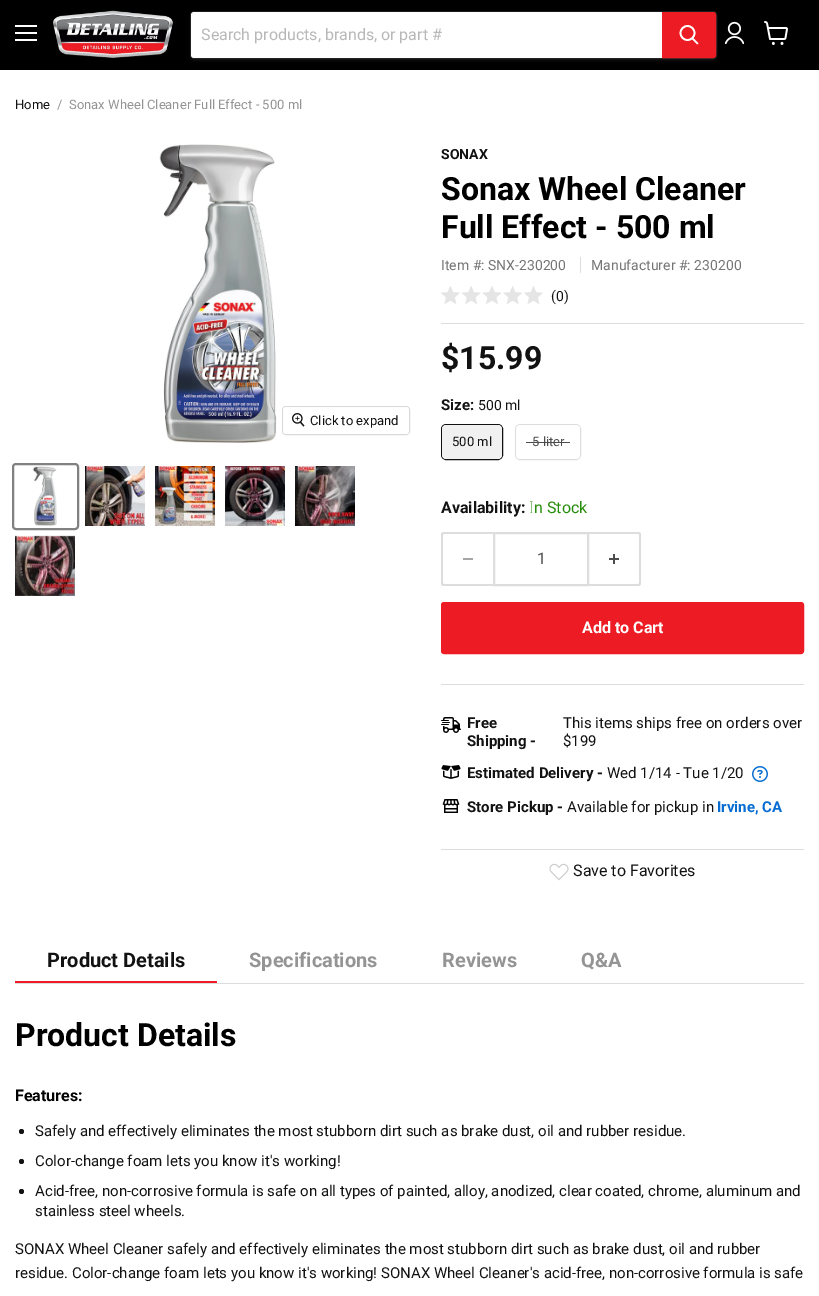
%!PS
<< /PageSize [819 1296] /PageUsesTransparency true >> setpagedevice
/alpha { dup .setfillconstantalpha .setstrokeconstantalpha } def
/roundrect { 5 dict begin { /r /h /w /y /x } { exch def } forall
  x r add y moveto x w add y 2 copy h add r arct x w add y h add x 1 index r arct
  x y h add x y r arct x y 2 copy exch w add exch r arct closepath end } def
/shadow { 12 dict begin { /a /b /q /h /w /y /x } { exch def } forall gsave /was 0 def
  9 -2 -9 { dup b mul 4 div /e exch def 1 sub .425 mul 2.718 exch exp 1 add a .99 .min exch div /now exch def
    1 1 now sub 1 was sub div sub alpha /was now def
    w h .min e 2 mul add 0 gt { x e sub y e sub w e 2 mul add h e 2 mul add
      q e add b .6 mul add w h .min 2 div e add .min 0 .max roundrect fill } if } for grestore end } def
/picture { 5 dict begin { /h /w /y /x /name } { exch def } forall
  gsave x y translate w h scale
  w h 8 [w 0 0 h 0 0] name (r) file false 3 colorimage grestore end } def
0 .pushpdf14devicefilter
0 1296 translate 1 -1 scale
4 setmiterlimit
1 setgray
0 0 819 1296 rectfill
0 setgray
0 0 819 70 rectfill
1 setgray
15 25 22 2 rectfill
15 32 22 2 rectfill
15 39 22 2 rectfill
(img1.rgb) 53 10 120 48 picture
0.502 setgray
190 13 527 48 4 1.5 0.11 shadow
0.2 alpha
190.5 11.5 526 47 3.5 roundrect stroke
1 alpha
1 setgray
newpath 194 12 moveto 662 12 lineto 662 58 lineto 194 58 lineto 192.5 58 191 56.5 191 55 curveto 191 15 lineto 191 13.5 192.5 12 194 12 curveto closepath fill
/Roboto-Regular [16 0 0 -16 0 0] selectfont
0.722 setgray
201 40 moveto (Search products, brands, or part #) show
0.929 0.11 0.141 setrgbcolor
newpath 662.5 12.5 moveto 713 12.5 lineto 714.5 12.5 715.5 13.5 715.5 15 curveto 715.5 55 lineto 715.5 56.5 714.5 57.5 713 57.5 curveto 662.5 57.5 lineto closepath gsave fill grestore
stroke
1 setgray
1.7 setlinewidth
1 setlinecap
newpath 697.5 43.5 moveto 692.5 38.5 lineto stroke
0 setlinecap
newpath 687.5 33 7 0 360 arc closepath stroke
(img2.rgb) 724 21 20 24 picture
(img3.rgb) 764 21 24 24 picture
/Roboto-Regular [13 0 0 -13 0 0] selectfont
0.071 setgray
15 109 moveto (Home) show
0.58 setgray
57 109 moveto (/) show
69 109 moveto (Sonax Wheel Cleaner Full Effect - 500 ml) show
(img4.rgb) 159 144 118 299 picture
0.851 setgray
1 setlinewidth
282.5 406.5 127 28 3.5 roundrect stroke
0.9 alpha
1 setgray
283 407 126 27 3 roundrect fill
1 alpha
(img5.rgb) 292 413 13 14 picture
0.071 setgray
310 425 moveto (Click to expand) show
0.506 setgray
2 setlinewidth
13 464 65 65 3 roundrect stroke
(img6.rgb) 33 466 24 60 picture
(img7.rgb) 85 466 60 60 picture
(img8.rgb) 155 466 60 60 picture
(img9.rgb) 225 466 60 60 picture
(img10.rgb) 295 466 60 60 picture
(img11.rgb) 15 535 60 61 picture
/Roboto-Bold [14 0 0 -14 0 0] selectfont
0.071 setgray
441 159 moveto (SONAX) show
/Roboto-Bold [32 0 0 -32 0 0] selectfont
0 setgray
441 200 moveto (Sonax Wheel Cleaner) show
441 238 moveto (Full Effect - 500 ml) show
/Roboto-Regular [14 0 0 -14 0 0] selectfont
0.459 setgray
441 270 moveto (Item #: SNX-230200) show
591 270 moveto (Manufacturer #: 230200) show
0.867 setgray
580 257 1 16 rectfill
(img12.rgb) 441 286 102 18 picture
0.071 setgray
551 301 moveto (\(0\)) show
0.867 setgray
441 323 363 1 rectfill
/Roboto-Bold [32 0 0 -32 0 0] selectfont
0.071 setgray
441 369 moveto ($15.99) show
/Roboto-Bold [15 0 0 -15 0 0] selectfont
441 410 moveto (Size:) show
/Roboto-Regular [14 0 0 -14 0 0] selectfont
478 410 moveto (500 ml) show
1 setlinewidth
441.5 424.5 61 35 4.5 roundrect stroke
0.945 setgray
442 425 60 34 4 roundrect fill
/Roboto-Regular [13 0 0 -13 0 0] selectfont
0.071 setgray
452 446 moveto (500 ml) show
0.867 setgray
515.5 424.5 65 35 4.5 roundrect stroke
1 setgray
516 425 64 34 4 roundrect fill
0.302 setgray
526 442 6 1 rectfill
532 446 moveto (5 liter) show
532 442 38 1 rectfill
/Roboto-Bold [16 0 0 -16 0 0] selectfont
0.071 setgray
441 513 moveto (Availability:) show
/NotoSans-Thin [16 0 0 -16 0 0] selectfont
0.149 0.549 0.043 setrgbcolor
529 513 moveto (I) show
/Roboto-Regular [16 0 0 -16 0 0] selectfont
534 513 moveto (n Stock) show
0.867 setgray
newpath 444 532 moveto 493 532 lineto 493 586 lineto 444 586 lineto 442 586 441 585 441 583 curveto 441 535 lineto 441 533 442 532 444 532 curveto closepath 444 534 moveto 493 534 lineto 493 584 lineto 444 584 lineto 443 584 443 584 443 583 curveto 443 535 lineto 443 534 443 534 444 534 curveto closepath eofill
0.651 setgray
463 558 10 2 rectfill
0.867 setgray
2 setlinewidth
494 533 94 52 rectstroke
0.302 setgray
537 564 moveto (1) show
0.867 setgray
newpath 589 532 moveto 638 532 lineto 640 532 641 533 641 535 curveto 641 583 lineto 641 585 640 586 638 586 curveto 589 586 lineto closepath 589 534 moveto 638 534 lineto 639 534 639 534 639 535 curveto 639 583 lineto 639 584 639 584 638 584 curveto 589 584 lineto closepath eofill
(img13.rgb) 609 554 10 10 picture
0.929 0.11 0.141 setrgbcolor
441.5 602.5 362 51 2.5 roundrect gsave fill grestore
1 setlinewidth
stroke
/Roboto-Bold [16 0 0 -16 0 0] selectfont
1 setgray
582 633 moveto (Add to Cart) show
0.867 setgray
441 684 363 1 rectfill
441 849 363 1 rectfill
(img14.rgb) 441 717 20 16 picture
/Roboto-Bold [15 0 0 -15 0 0] selectfont
0.071 setgray
467 728 moveto (Free) show
467 746 moveto (Shipping -) show
/Roboto-Regular [15 0 0 -15 0 0] selectfont
563 728 moveto (This items ships free on orders over) show
563 746 moveto ($199) show
(img15.rgb) 441 765 20 14 picture
/Roboto-Bold [15 0 0 -15 0 0] selectfont
467 778 moveto (Estimated Delivery -) show
/Roboto-Regular [15 0 0 -15 0 0] selectfont
607 778 moveto (Wed 1/14 - Tue 1/20) show
(img16.rgb) 752 766 16 16 picture
(img17.rgb) 442 799 18 14 picture
/Roboto-Bold [15 0 0 -15 0 0] selectfont
467 812 moveto (Store Pickup -) show
/Roboto-Regular [15 0 0 -15 0 0] selectfont
567 812 moveto (Available for pickup in) show
/Roboto-Bold [15 0 0 -15 0 0] selectfont
0.031 0.427 0.824 setrgbcolor
717 812 moveto (Irvine, CA) show
(img18.rgb) 549 863 20 18 picture
/Roboto-Regular [16 0 0 -16 0 0] selectfont
0.071 setgray
573 876 moveto (Save to Favorites) show
0.867 setgray
15 983 789 1 rectfill
0.929 0.11 0.141 setrgbcolor
15 981 202 2 rectfill
/Roboto-Bold [20 0 0 -20 0 0] selectfont
0.071 setgray
47 967 moveto (Product Details) show
0.58 setgray
249 967 moveto (Specifications) show
442 967 moveto (Reviews) show
581 967 moveto (Q&A) show
/Roboto-Bold [32 0 0 -32 0 0] selectfont
0 setgray
15 1046 moveto (Product Details) show
/Roboto-Bold [16 0 0 -16 0 0] selectfont
15 1101 moveto (Features:) show
0.071 setgray
newpath 21.5 1131.5 2.5 0 360 arc closepath fill
/Roboto-Regular [15 0 0 -15 0 0] selectfont
35 1136 moveto (Safely and effectively eliminates the most stubborn dirt such as brake dust, oil and rubber residue.) show
newpath 21.5 1161.5 2.5 0 360 arc closepath fill
35 1166 moveto (Color-change foam lets you know it's working!) show
newpath 21.5 1191.5 2.5 0 360 arc closepath fill
35 1196 moveto (Acid-free, non-corrosive formula is safe on all types of painted, alloy, anodized, clear coated, chrome, aluminum and) show
35 1216 moveto (stainless steel wheels.) show
15 1254 moveto (SONAX Wheel Cleaner safely and effectively eliminates the most stubborn dirt such as brake dust, oil and rubber) show
15 1278 moveto (residue. Color-change foam lets you know it's working! SONAX Wheel Cleaner's acid-free, non-corrosive formula is safe) show
.poppdf14devicefilter showpage
